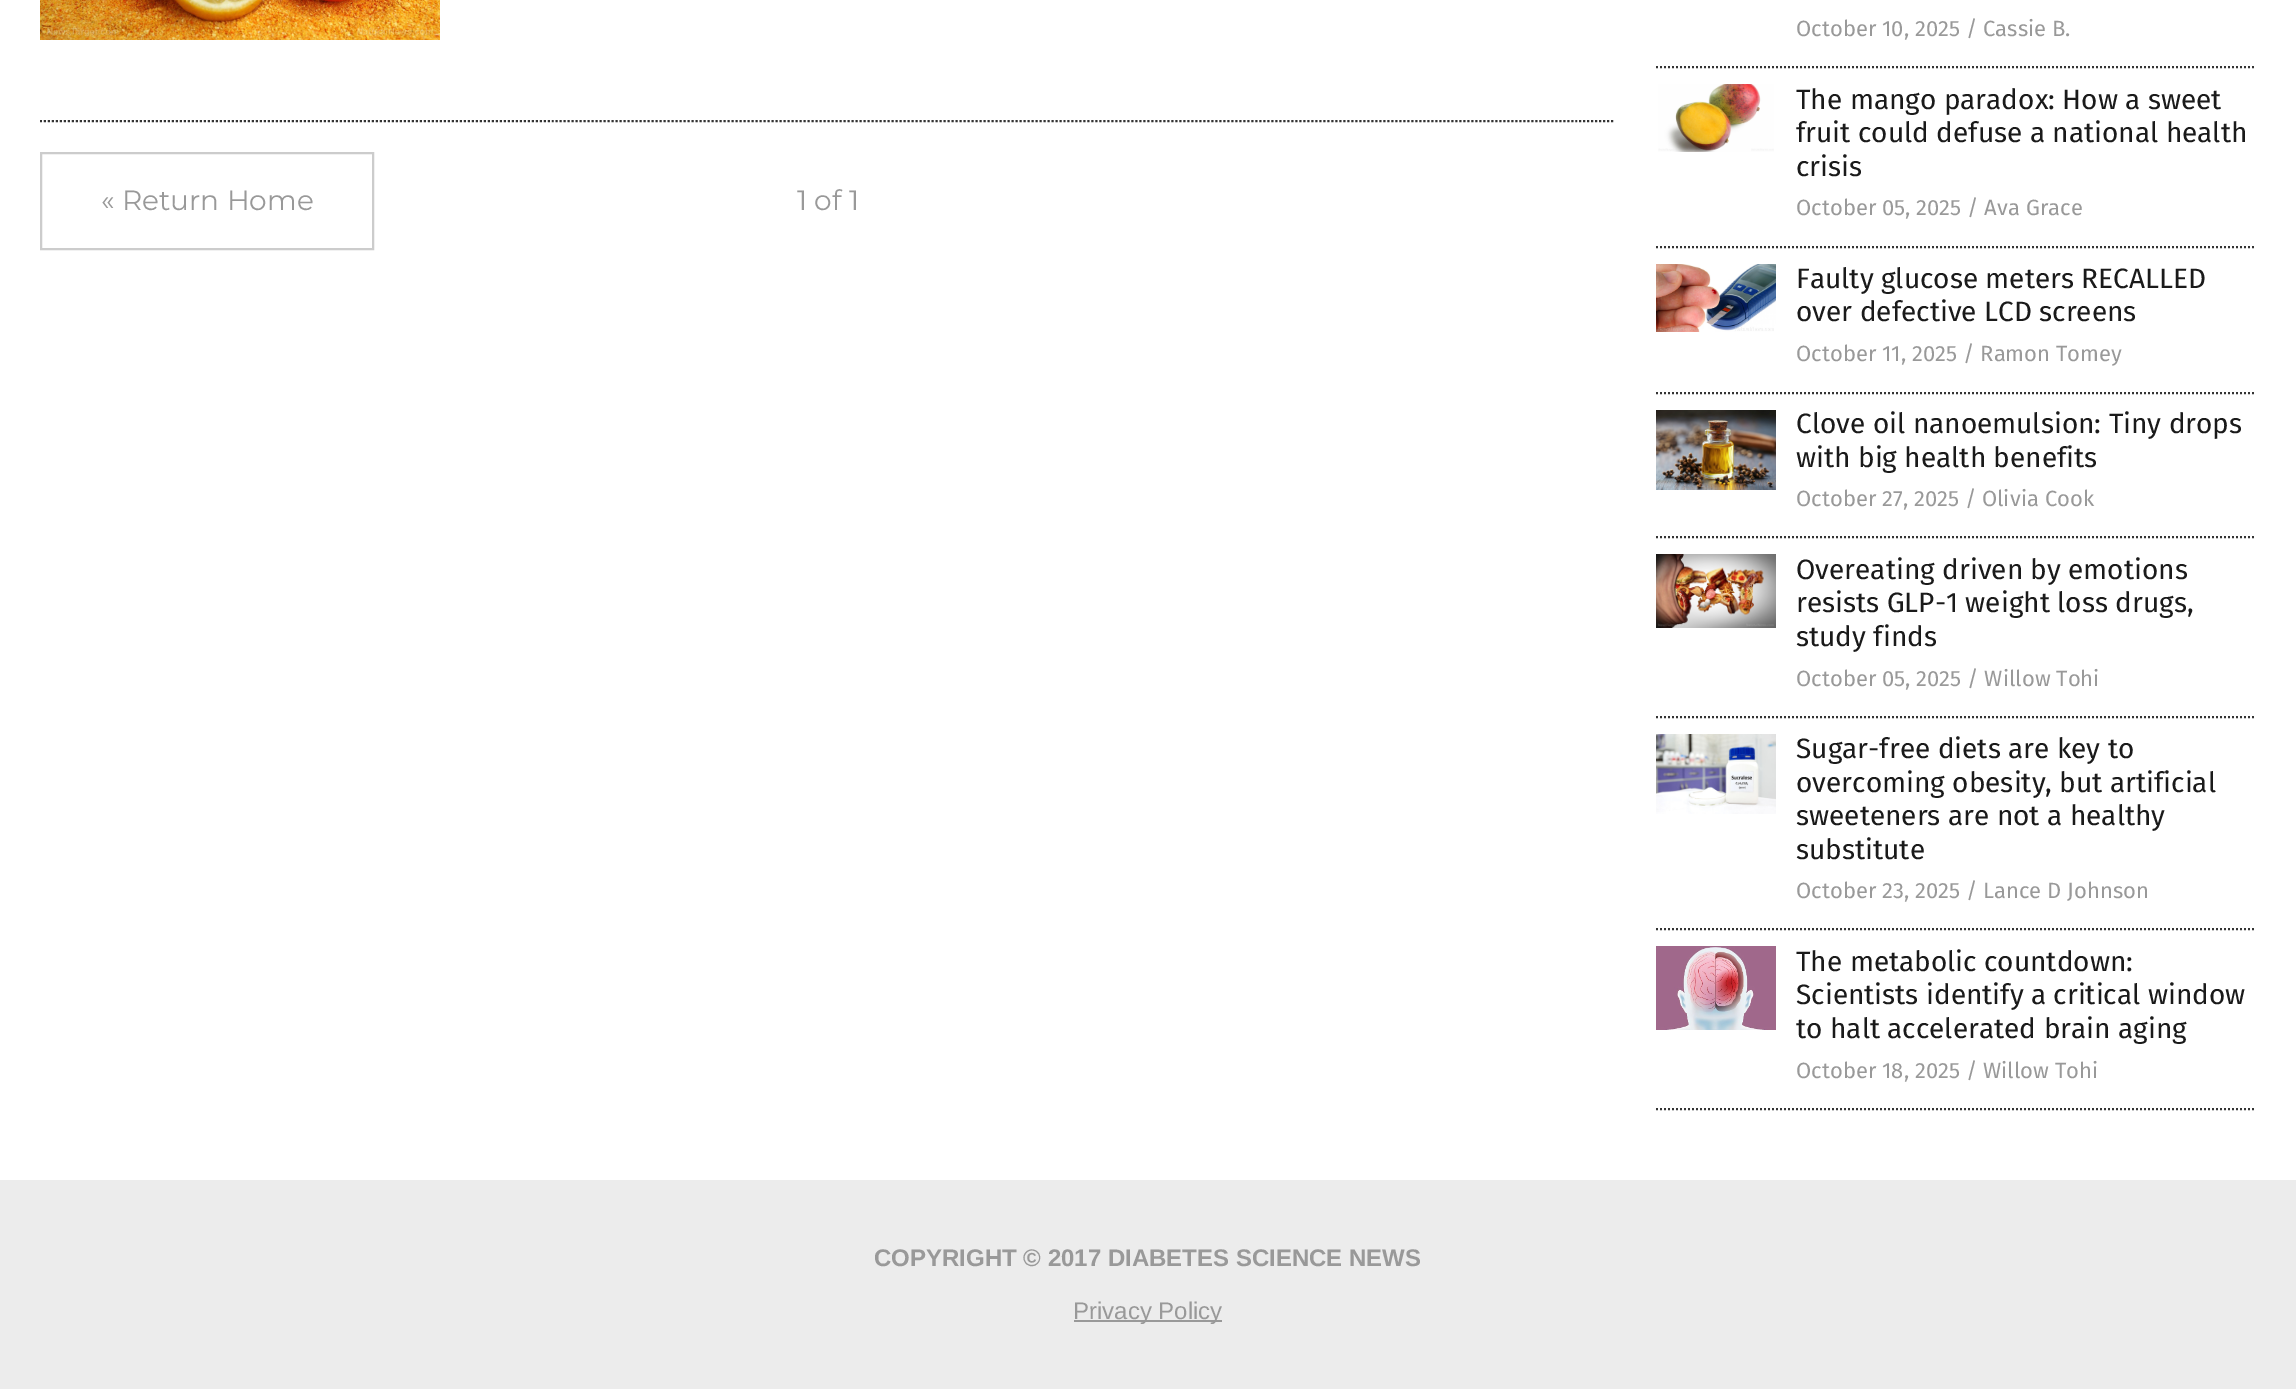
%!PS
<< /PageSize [2296 1389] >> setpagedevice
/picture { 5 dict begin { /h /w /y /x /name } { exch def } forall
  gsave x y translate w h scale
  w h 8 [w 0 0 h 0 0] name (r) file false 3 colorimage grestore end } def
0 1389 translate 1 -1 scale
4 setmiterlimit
0.925 setgray
0 0 2296 1389 rectfill
1 setgray
0 0 2296 1180 rectfill
0.204 setgray
2 setlinewidth
[2 2] 0 setdash
newpath 40 121 moveto 1616 121 lineto stroke
(img1.rgb) 40 0 400 40 picture
0.8 setgray
[] 0 setdash
41 153 332 96 rectstroke
/Montserrat-Regular [28 0 0 -28 0 0] selectfont
0.6 setgray
101 210 moveto (« Return Home) show
797 210 moveto (1 of 1) show
0.204 setgray
[2 2] 0 setdash
newpath 1656 67 moveto 2256 67 lineto stroke
/FiraSans-Regular [22 0 0 -22 0 0] selectfont
0.6 setgray
1796 36 moveto (October 10, 2025 / Cassie B.) show
0.204 setgray
newpath 1656 247 moveto 2256 247 lineto stroke
(img2.rgb) 1658 84 116 68 picture
/FiraSans-Regular [28 0 0 -28 0 0] selectfont
0.102 setgray
1796 109 moveto (The mango paradox: How a sweet) show
1796 142 moveto (fruit could defuse a national health) show
1796 176 moveto (crisis) show
/FiraSans-Regular [22 0 0 -22 0 0] selectfont
0.6 setgray
1796 215 moveto (October 05, 2025 / Ava Grace) show
0.204 setgray
newpath 1656 393 moveto 2256 393 lineto stroke
(img3.rgb) 1656 264 120 68 picture
/FiraSans-Regular [28 0 0 -28 0 0] selectfont
0.102 setgray
1796 288 moveto (Faulty glucose meters RECALLED) show
1796 321 moveto (over defective LCD screens) show
/FiraSans-Regular [22 0 0 -22 0 0] selectfont
0.6 setgray
1796 361 moveto (October 11, 2025 / Ramon Tomey) show
0.204 setgray
newpath 1656 537 moveto 2256 537 lineto stroke
(img4.rgb) 1656 410 120 80 picture
/FiraSans-Regular [28 0 0 -28 0 0] selectfont
0.102 setgray
1796 433 moveto (Clove oil nanoemulsion: Tiny drops) show
1796 467 moveto (with big health benefits) show
/FiraSans-Regular [22 0 0 -22 0 0] selectfont
0.6 setgray
1796 506 moveto (October 27, 2025 / Olivia Cook) show
0.204 setgray
newpath 1656 717 moveto 2256 717 lineto stroke
(img5.rgb) 1656 554 120 74 picture
/FiraSans-Regular [28 0 0 -28 0 0] selectfont
0.102 setgray
1796 579 moveto (Overeating driven by emotions) show
1796 612 moveto (resists GLP-1 weight loss drugs,) show
1796 646 moveto (study finds) show
/FiraSans-Regular [22 0 0 -22 0 0] selectfont
0.6 setgray
1796 686 moveto (October 05, 2025 / Willow Tohi) show
0.204 setgray
newpath 1656 929 moveto 2256 929 lineto stroke
(img6.rgb) 1656 734 120 80 picture
/FiraSans-Regular [28 0 0 -28 0 0] selectfont
0.102 setgray
1796 758 moveto (Sugar-free diets are key to) show
1796 792 moveto (overcoming obesity, but artificial) show
1796 825 moveto (sweeteners are not a healthy) show
1796 859 moveto (substitute) show
/FiraSans-Regular [22 0 0 -22 0 0] selectfont
0.6 setgray
1796 898 moveto (October 23, 2025 / Lance D Johnson) show
0.204 setgray
newpath 1656 1109 moveto 2256 1109 lineto stroke
(img7.rgb) 1656 946 120 84 picture
/FiraSans-Regular [28 0 0 -28 0 0] selectfont
0.102 setgray
1796 971 moveto (The metabolic countdown:) show
1796 1004 moveto (Scientists identify a critical window) show
1796 1038 moveto (to halt accelerated brain aging) show
/FiraSans-Regular [22 0 0 -22 0 0] selectfont
0.6 setgray
1796 1078 moveto (October 18, 2025 / Willow Tohi) show
/LiberationSans-Bold [24 0 0 -24 0 0] selectfont
874 1266 moveto (COPYRIGHT © 2017 DIABETES SCIENCE NEWS) show
1074 1320 148 2 rectfill
/LiberationSans-Regular [24 0 0 -24 0 0] selectfont
1073 1319 moveto (Privacy Policy) show
showpage
